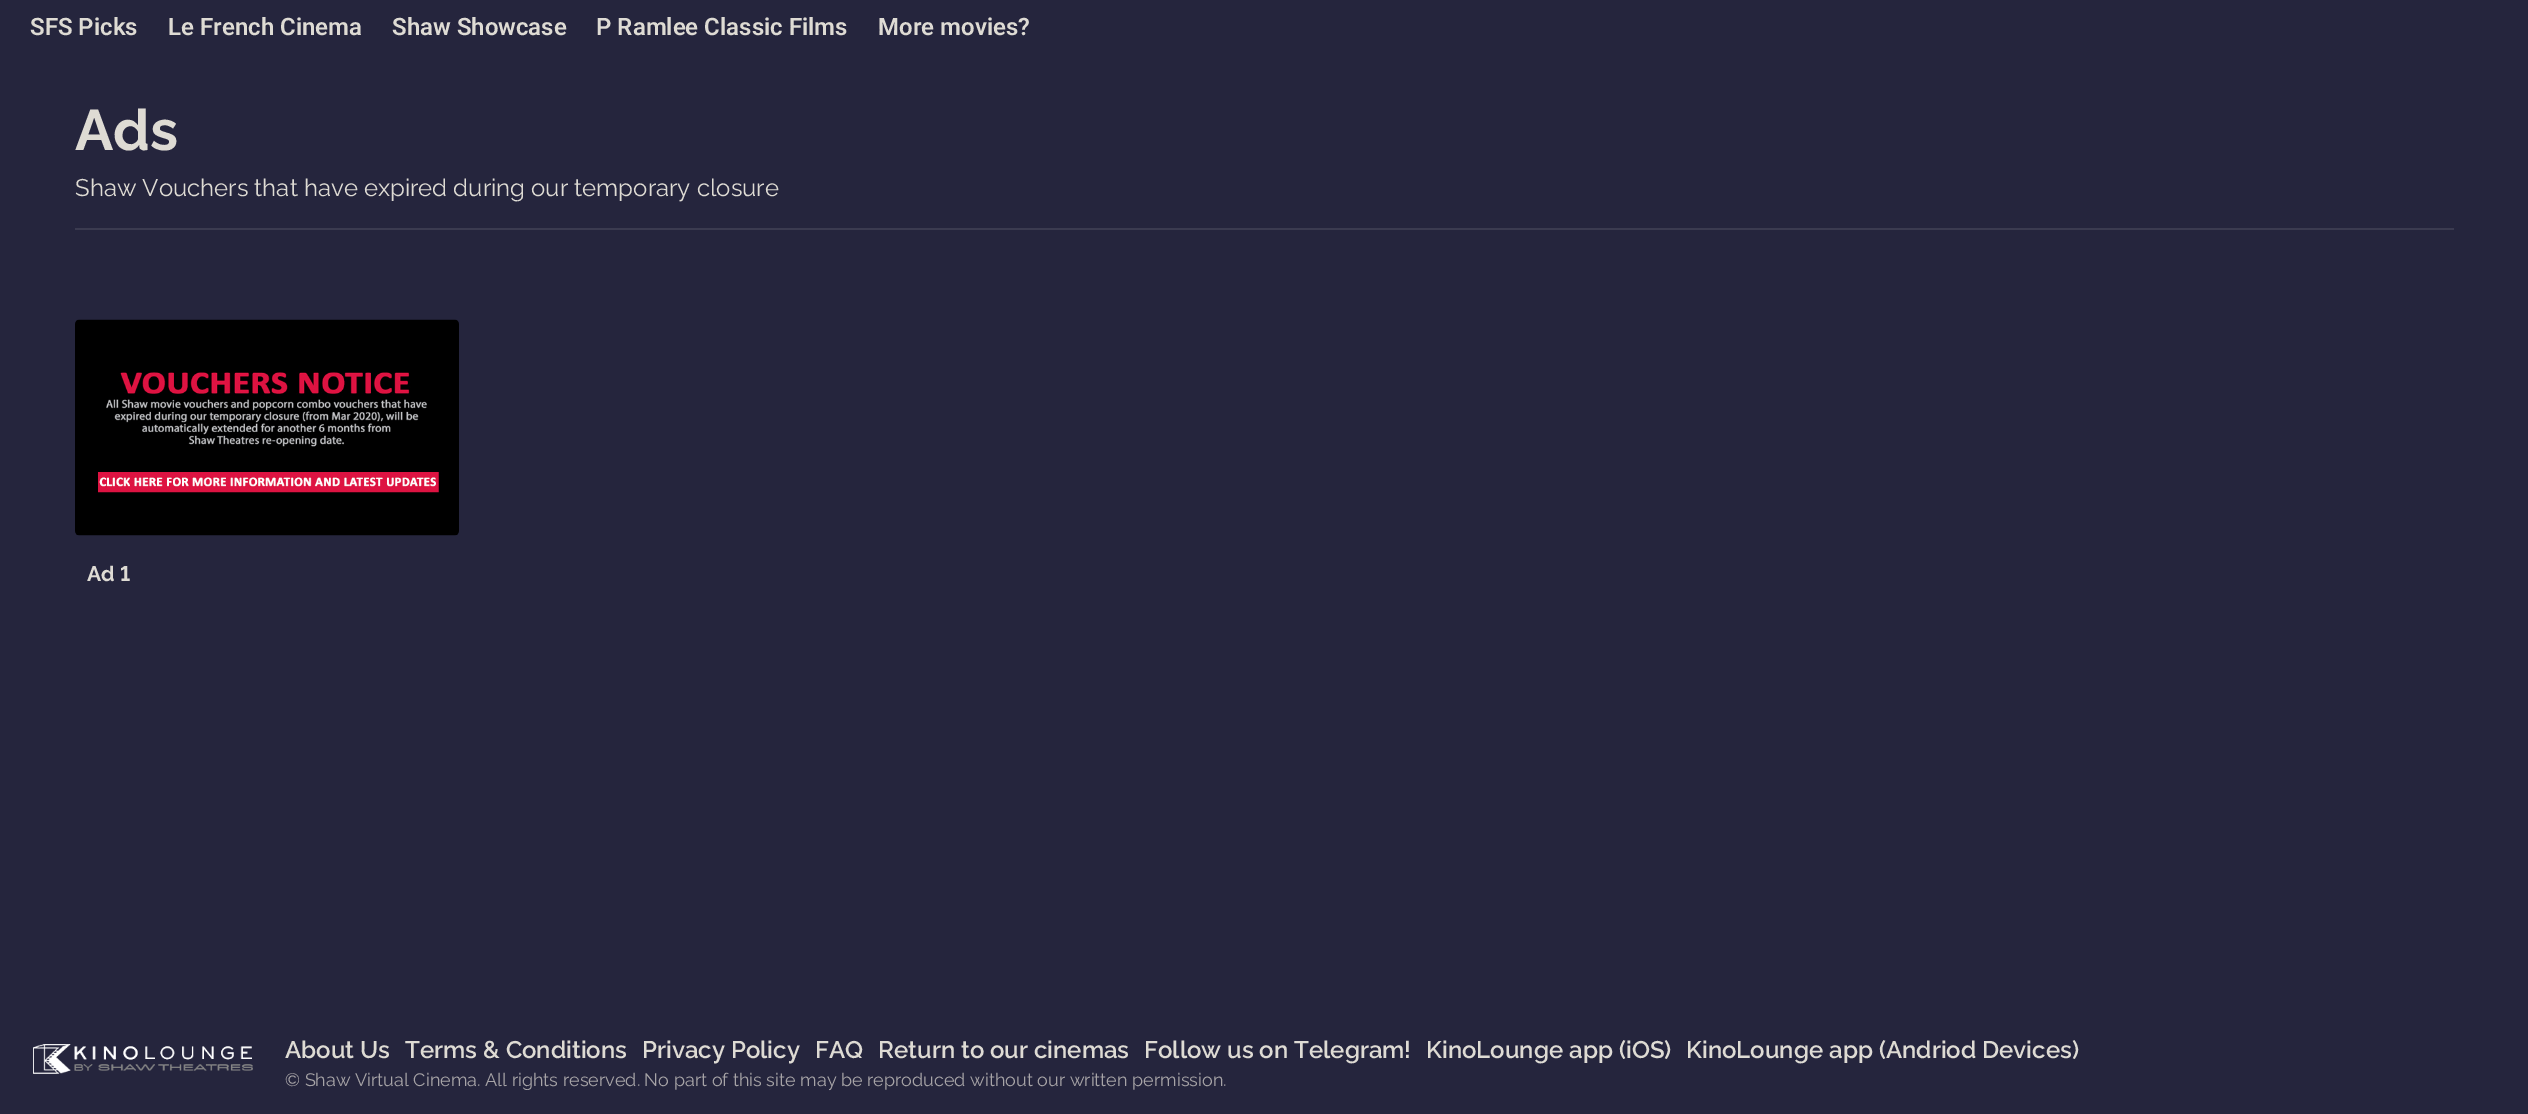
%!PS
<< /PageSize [2528 1114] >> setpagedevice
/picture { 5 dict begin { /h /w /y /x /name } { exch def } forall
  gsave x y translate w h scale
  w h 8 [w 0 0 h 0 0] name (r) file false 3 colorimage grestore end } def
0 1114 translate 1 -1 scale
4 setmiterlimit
0.145 0.145 0.239 setrgbcolor
0 0 2528 1114 rectfill
/Roboto-SemiBold [24 0 0 -24 0 0] selectfont
0.871 0.859 0.831 setrgbcolor
30 35 moveto (SFS Picks) show
168 35 moveto (Le French Cinema) show
392 35 moveto (Shaw Showcase) show
596 35 moveto (P Ramlee Classic Films) show
878 35 moveto (More movies?) show
/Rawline-Bold [57 0 0 -57 0 0] selectfont
75 150 moveto (Ads) show
0.231 0.231 0.314 setrgbcolor
75 228 2379 2 rectfill
/Rawline-Regular [24 0 0 -24 0 0] selectfont
0.871 0.859 0.831 setrgbcolor
75 196 moveto (Shaw Vouchers that have expired during our temporary closure) show
(img1.rgb) 75 319 384 217 picture
/Rawline-Bold [21 0 0 -21 0 0] selectfont
87 581 moveto (Ad 1) show
(img2.rgb) 33 1044 220 30 picture
/Rawline-SemiBold [24 0 0 -24 0 0] selectfont
285 1058 moveto (About Us) show
405 1058 moveto (Terms & Conditions) show
642 1058 moveto (Privacy Policy) show
815 1058 moveto (FAQ) show
878 1058 moveto (Return to our cinemas) show
1144 1058 moveto (Follow us on Telegram!) show
1426 1058 moveto (KinoLounge app \(iOS\)) show
1686 1058 moveto (KinoLounge app \(Andriod Devices\)) show
/Rawline-Regular [18 0 0 -18 0 0] selectfont
0.655 0.643 0.655 setrgbcolor
285 1086 moveto (© Shaw Virtual Cinema. All rights reserved. No part of this site may be reproduced without our written permission.) show
showpage
